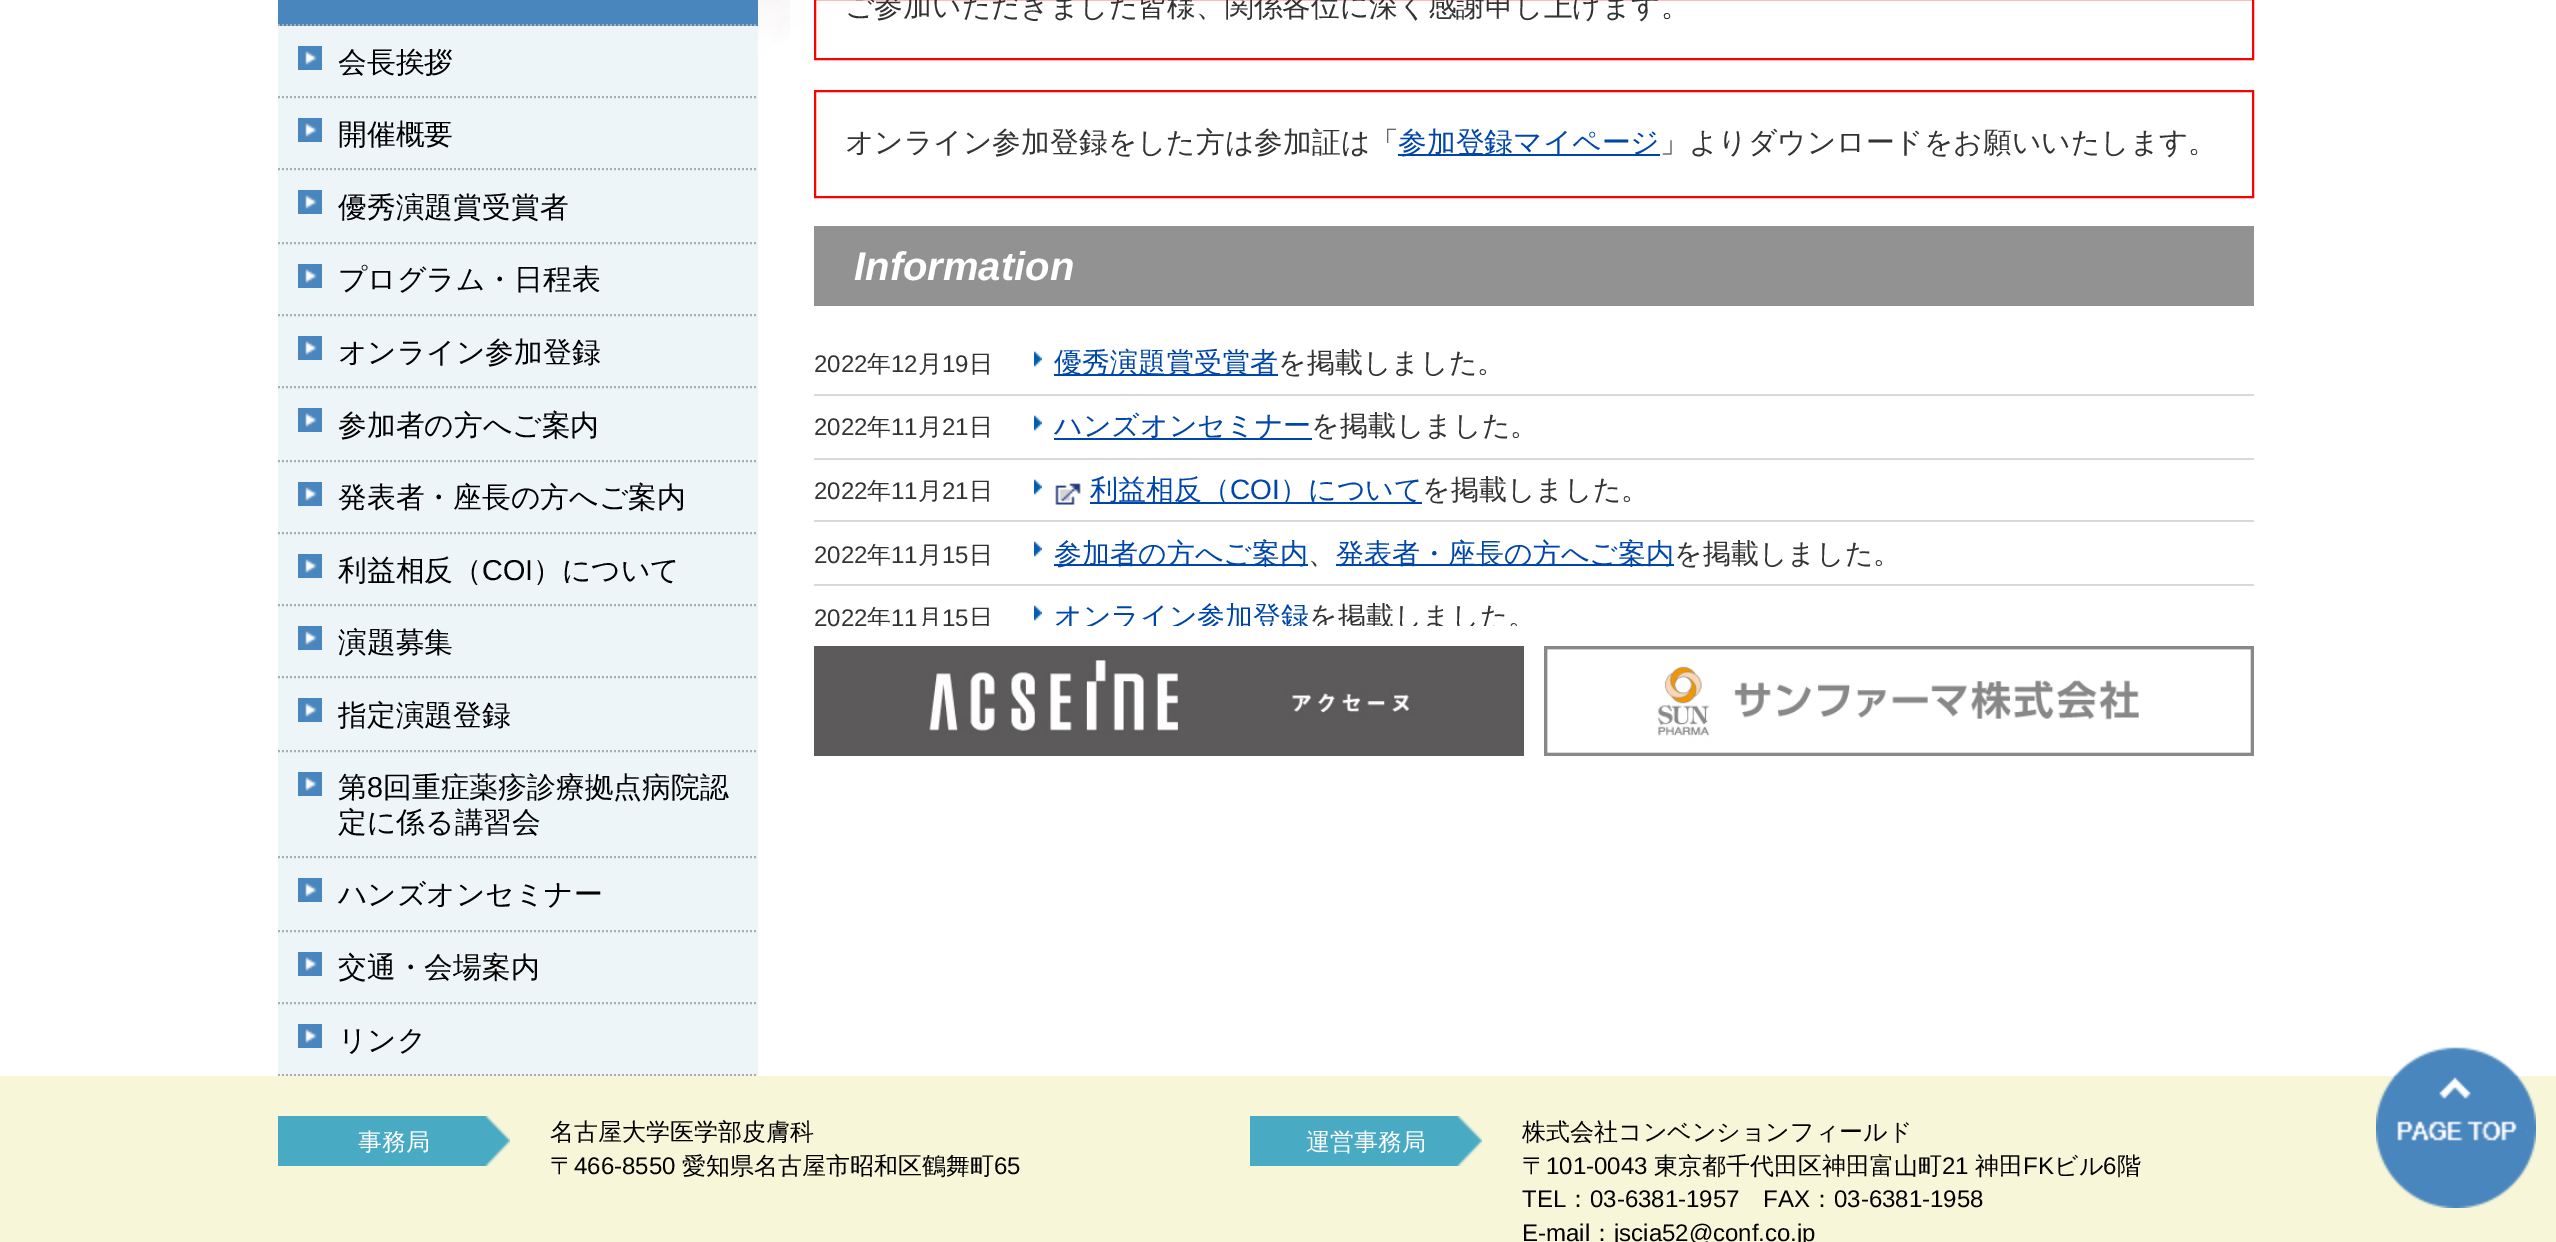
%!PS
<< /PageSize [2556 1242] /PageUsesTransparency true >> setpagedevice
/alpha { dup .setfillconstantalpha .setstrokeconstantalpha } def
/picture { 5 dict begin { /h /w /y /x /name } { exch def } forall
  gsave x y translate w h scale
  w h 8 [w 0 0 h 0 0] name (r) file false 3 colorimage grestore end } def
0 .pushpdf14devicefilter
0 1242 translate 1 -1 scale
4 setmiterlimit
1 setgray
0 0 2556 1242 rectfill
(img1.rgb) 758 0 1217 120 picture
0.29 0.525 0.745 setrgbcolor
278 0 480 26 rectfill
0.663 0.682 0.694 setrgbcolor
2 setlinewidth
[2 2] 0 setdash
newpath 278 25 moveto 758 25 lineto stroke
0.929 0.961 0.976 setrgbcolor
278 26 480 1050 rectfill
(img2.rgb) 298 46 24 24 picture
0.663 0.682 0.694 setrgbcolor
newpath 278 97 moveto 758 97 lineto stroke
/WenQuanYiZenHei-Medium [28.8 0 0 -28.8 0 0] selectfont
0 setgray
338 72 moveto (会長挨拶) show
(img2.rgb) 298 118 24 24 picture
0.663 0.682 0.694 setrgbcolor
newpath 278 169 moveto 758 169 lineto stroke
0 setgray
338 144 moveto (開催概要) show
(img2.rgb) 298 190 24 24 picture
0.663 0.682 0.694 setrgbcolor
newpath 278 243 moveto 758 243 lineto stroke
0 setgray
338 217 moveto (優秀演題賞受賞者) show
(img2.rgb) 298 264 24 24 picture
0.663 0.682 0.694 setrgbcolor
newpath 278 315 moveto 758 315 lineto stroke
0 setgray
338 289 moveto (プログラム・日程表) show
(img2.rgb) 298 336 24 24 picture
0.663 0.682 0.694 setrgbcolor
newpath 278 387 moveto 758 387 lineto stroke
0 setgray
338 362 moveto (オンライン参加登録) show
(img2.rgb) 298 408 24 24 picture
0.663 0.682 0.694 setrgbcolor
newpath 278 461 moveto 758 461 lineto stroke
0 setgray
338 435 moveto (参加者の方へご案内) show
(img2.rgb) 298 482 24 24 picture
0.663 0.682 0.694 setrgbcolor
newpath 278 533 moveto 758 533 lineto stroke
0 setgray
338 507 moveto (発表者・座長の方へご案内) show
(img2.rgb) 298 554 24 24 picture
0.663 0.682 0.694 setrgbcolor
newpath 278 605 moveto 758 605 lineto stroke
0 setgray
338 580 moveto (利益相反（) show
/LiberationSans-Regular [28.8 0 0 -28.8 0 0] selectfont
482 580 moveto (COI) show
/WenQuanYiZenHei-Medium [28.8 0 0 -28.8 0 0] selectfont
533 580 moveto (）について) show
(img2.rgb) 298 626 24 24 picture
0.663 0.682 0.694 setrgbcolor
newpath 278 677 moveto 758 677 lineto stroke
0 setgray
338 652 moveto (演題募集) show
(img2.rgb) 298 698 24 24 picture
0.663 0.682 0.694 setrgbcolor
newpath 278 751 moveto 758 751 lineto stroke
0 setgray
338 725 moveto (指定演題登録) show
(img2.rgb) 298 772 24 24 picture
0.663 0.682 0.694 setrgbcolor
newpath 278 857 moveto 758 857 lineto stroke
0 setgray
338 797 moveto (第) show
/LiberationSans-Regular [28.8 0 0 -28.8 0 0] selectfont
367 797 moveto (8) show
/WenQuanYiZenHei-Medium [28.8 0 0 -28.8 0 0] selectfont
383 797 moveto (回重症薬疹診療拠点病院認) show
338 832 moveto (定に係る講習会) show
(img2.rgb) 298 878 24 24 picture
0.663 0.682 0.694 setrgbcolor
newpath 278 931 moveto 758 931 lineto stroke
0 setgray
338 904 moveto (ハンズオンセミナー) show
(img2.rgb) 298 952 24 24 picture
0.663 0.682 0.694 setrgbcolor
newpath 278 1003 moveto 758 1003 lineto stroke
0 setgray
338 977 moveto (交通・会場案内) show
(img2.rgb) 298 1024 24 24 picture
0.663 0.682 0.694 setrgbcolor
newpath 278 1075 moveto 758 1075 lineto stroke
0 setgray
338 1050 moveto (リンク) show
0.9 alpha
1 setgray
790 0 1185 51 rectfill
1 alpha
1 0 0 setrgbcolor
[] 0 setdash
815 -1 1438 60 rectstroke
0.2 setgray
845 16 moveto (ご参加いただきました皆様、関係各位に深く感謝申し上げます。) show
1 0 0 setrgbcolor
815 91 1438 106 rectstroke
0.2 setgray
845 152 moveto (オンライン参加登録をした方は参加証は「) show
0 0.275 0.667 setrgbcolor
1398 154 262 2 rectfill
1398 152 moveto (参加登録マイページ) show
0.2 setgray
1660 152 moveto (」よりダウンロードをお願いいたします。) show
0.573 setgray
814 226 1440 80 rectfill
/LiberationSans-BoldItalic [40 0 0 -40 0 0] selectfont
1 setgray
854 280 moveto (Information) show
/LiberationSans-Regular [24 0 0 -24 0 0] selectfont
0.2 setgray
814 372 moveto (2022) show
/WenQuanYiZenHei-Medium [24 0 0 -24 0 0] selectfont
867 372 moveto (年) show
/LiberationSans-Regular [24 0 0 -24 0 0] selectfont
891 372 moveto (12) show
/WenQuanYiZenHei-Medium [24 0 0 -24 0 0] selectfont
918 372 moveto (月) show
/LiberationSans-Regular [24 0 0 -24 0 0] selectfont
942 372 moveto (19) show
/WenQuanYiZenHei-Medium [24 0 0 -24 0 0] selectfont
969 372 moveto (日) show
(img3.rgb) 1034 351 8 16 picture
0.851 setgray
814 394 1440 2 rectfill
0 0.275 0.667 setrgbcolor
1054 374 224 2 rectfill
/WenQuanYiZenHei-Medium [28 0 0 -28 0 0] selectfont
1054 372 moveto (優秀演題賞受賞者) show
0.2 setgray
1278 372 moveto (を掲載しました。) show
/LiberationSans-Regular [24 0 0 -24 0 0] selectfont
814 435 moveto (2022) show
/WenQuanYiZenHei-Medium [24 0 0 -24 0 0] selectfont
867 435 moveto (年) show
/LiberationSans-Regular [24 0 0 -24 0 0] selectfont
891 435 moveto (11) show
/WenQuanYiZenHei-Medium [24 0 0 -24 0 0] selectfont
918 435 moveto (月) show
/LiberationSans-Regular [24 0 0 -24 0 0] selectfont
942 435 moveto (21) show
/WenQuanYiZenHei-Medium [24 0 0 -24 0 0] selectfont
969 435 moveto (日) show
(img3.rgb) 1034 415 8 16 picture
0.851 setgray
814 458 1440 2 rectfill
0 0.275 0.667 setrgbcolor
1054 438 258 2 rectfill
/WenQuanYiZenHei-Medium [28 0 0 -28 0 0] selectfont
1054 435 moveto (ハンズオンセミナー) show
0.2 setgray
1311 435 moveto (を掲載しました。) show
/LiberationSans-Regular [24 0 0 -24 0 0] selectfont
814 499 moveto (2022) show
/WenQuanYiZenHei-Medium [24 0 0 -24 0 0] selectfont
867 499 moveto (年) show
/LiberationSans-Regular [24 0 0 -24 0 0] selectfont
891 499 moveto (11) show
/WenQuanYiZenHei-Medium [24 0 0 -24 0 0] selectfont
918 499 moveto (月) show
/LiberationSans-Regular [24 0 0 -24 0 0] selectfont
942 499 moveto (21) show
/WenQuanYiZenHei-Medium [24 0 0 -24 0 0] selectfont
969 499 moveto (日) show
(img3.rgb) 1034 479 8 16 picture
0.851 setgray
814 520 1440 2 rectfill
(img4.rgb) 1055 483 26 22 picture
0 0.275 0.667 setrgbcolor
1090 502 332 2 rectfill
/WenQuanYiZenHei-Medium [28 0 0 -28 0 0] selectfont
1090 499 moveto (利益相反（) show
/LiberationSans-Regular [28 0 0 -28 0 0] selectfont
1230 499 moveto (COI) show
/WenQuanYiZenHei-Medium [28 0 0 -28 0 0] selectfont
1280 499 moveto (）について) show
0.2 setgray
1422 499 moveto (を掲載しました。) show
/LiberationSans-Regular [24 0 0 -24 0 0] selectfont
814 563 moveto (2022) show
/WenQuanYiZenHei-Medium [24 0 0 -24 0 0] selectfont
867 563 moveto (年) show
/LiberationSans-Regular [24 0 0 -24 0 0] selectfont
891 563 moveto (11) show
/WenQuanYiZenHei-Medium [24 0 0 -24 0 0] selectfont
918 563 moveto (月) show
/LiberationSans-Regular [24 0 0 -24 0 0] selectfont
942 563 moveto (15) show
/WenQuanYiZenHei-Medium [24 0 0 -24 0 0] selectfont
969 563 moveto (日) show
(img3.rgb) 1034 541 8 16 picture
0.851 setgray
814 584 1440 2 rectfill
0 0.275 0.667 setrgbcolor
1054 564 254 2 rectfill
/WenQuanYiZenHei-Medium [28 0 0 -28 0 0] selectfont
1054 563 moveto (参加者の方へご案内) show
0.2 setgray
1308 563 moveto (、) show
0 0.275 0.667 setrgbcolor
1336 564 338 2 rectfill
1336 563 moveto (発表者・座長の方へご案内) show
0.2 setgray
1674 563 moveto (を掲載しました。) show
/LiberationSans-Regular [24 0 0 -24 0 0] selectfont
814 626 moveto (2022) show
gsave
814 306 1440 320 rectclip
/WenQuanYiZenHei-Medium [24 0 0 -24 0 0] selectfont
867 626 moveto (年) show
grestore
891 626 moveto (11) show
gsave
814 306 1440 320 rectclip
/WenQuanYiZenHei-Medium [24 0 0 -24 0 0] selectfont
918 626 moveto (月) show
/LiberationSans-Regular [24 0 0 -24 0 0] selectfont
942 626 moveto (15) show
/WenQuanYiZenHei-Medium [24 0 0 -24 0 0] selectfont
969 626 moveto (日) show
grestore
(img3.rgb) 1034 605 8 16 picture
gsave
814 306 1440 320 rectclip
/WenQuanYiZenHei-Medium [28 0 0 -28 0 0] selectfont
0 0.275 0.667 setrgbcolor
1054 626 moveto (オンライン参加登録) show
0.2 setgray
1309 626 moveto (を掲載しました。) show
grestore
(img5.rgb) 814 646 710 110 picture
(img6.rgb) 1544 646 710 110 picture
0.969 0.965 0.847 setrgbcolor
0 1076 2556 166 rectfill
(img7.rgb) 2376 1047 160 161 picture
(img8.rgb) 278 1116 232 50 picture
/WenQuanYiZenHei-Medium [24 0 0 -24 0 0] selectfont
1 setgray
358 1150 moveto (事務局) show
0 setgray
550 1140 moveto (名古屋大学医学部皮膚科) show
550 1174 moveto (〒) show
/LiberationSans-Regular [24 0 0 -24 0 0] selectfont
574 1174 moveto (466-8550) show
/WenQuanYiZenHei-Medium [24 0 0 -24 0 0] selectfont
682 1174 moveto (愛知県名古屋市昭和区鶴舞町) show
/LiberationSans-Regular [24 0 0 -24 0 0] selectfont
994 1174 moveto (65) show
(img8.rgb) 1250 1116 232 50 picture
/WenQuanYiZenHei-Medium [24 0 0 -24 0 0] selectfont
1 setgray
1306 1150 moveto (運営事務局) show
0 setgray
1522 1140 moveto (株式会社コンベンションフィールド) show
1522 1174 moveto (〒) show
/LiberationSans-Regular [24 0 0 -24 0 0] selectfont
1546 1174 moveto (101-0043) show
/WenQuanYiZenHei-Medium [24 0 0 -24 0 0] selectfont
1654 1174 moveto (東京都千代田区神田富山町) show
/LiberationSans-Regular [24 0 0 -24 0 0] selectfont
1942 1174 moveto (21) show
/WenQuanYiZenHei-Medium [24 0 0 -24 0 0] selectfont
1975 1174 moveto (神田) show
/LiberationSans-Regular [24 0 0 -24 0 0] selectfont
2023 1174 moveto (FK) show
/WenQuanYiZenHei-Medium [24 0 0 -24 0 0] selectfont
2054 1174 moveto (ビル) show
/LiberationSans-Regular [24 0 0 -24 0 0] selectfont
2103 1174 moveto (6) show
/WenQuanYiZenHei-Medium [24 0 0 -24 0 0] selectfont
2117 1174 moveto (階) show
/LiberationSans-Regular [24 0 0 -24 0 0] selectfont
1522 1207 moveto (TEL) show
/WenQuanYiZenHei-Medium [24 0 0 -24 0 0] selectfont
1566 1207 moveto (：) show
/LiberationSans-Regular [24 0 0 -24 0 0] selectfont
1590 1207 moveto (03-6381-1957) show
1763 1207 moveto (FAX) show
/WenQuanYiZenHei-Medium [24 0 0 -24 0 0] selectfont
1810 1207 moveto (：) show
/LiberationSans-Regular [24 0 0 -24 0 0] selectfont
1834 1207 moveto (03-6381-1958) show
1522 1241 moveto (E-mail) show
/WenQuanYiZenHei-Medium [24 0 0 -24 0 0] selectfont
1590 1241 moveto (：) show
/LiberationSans-Regular [24 0 0 -24 0 0] selectfont
1614 1241 moveto (jscia52@conf.co.jp) show
.poppdf14devicefilter showpage
